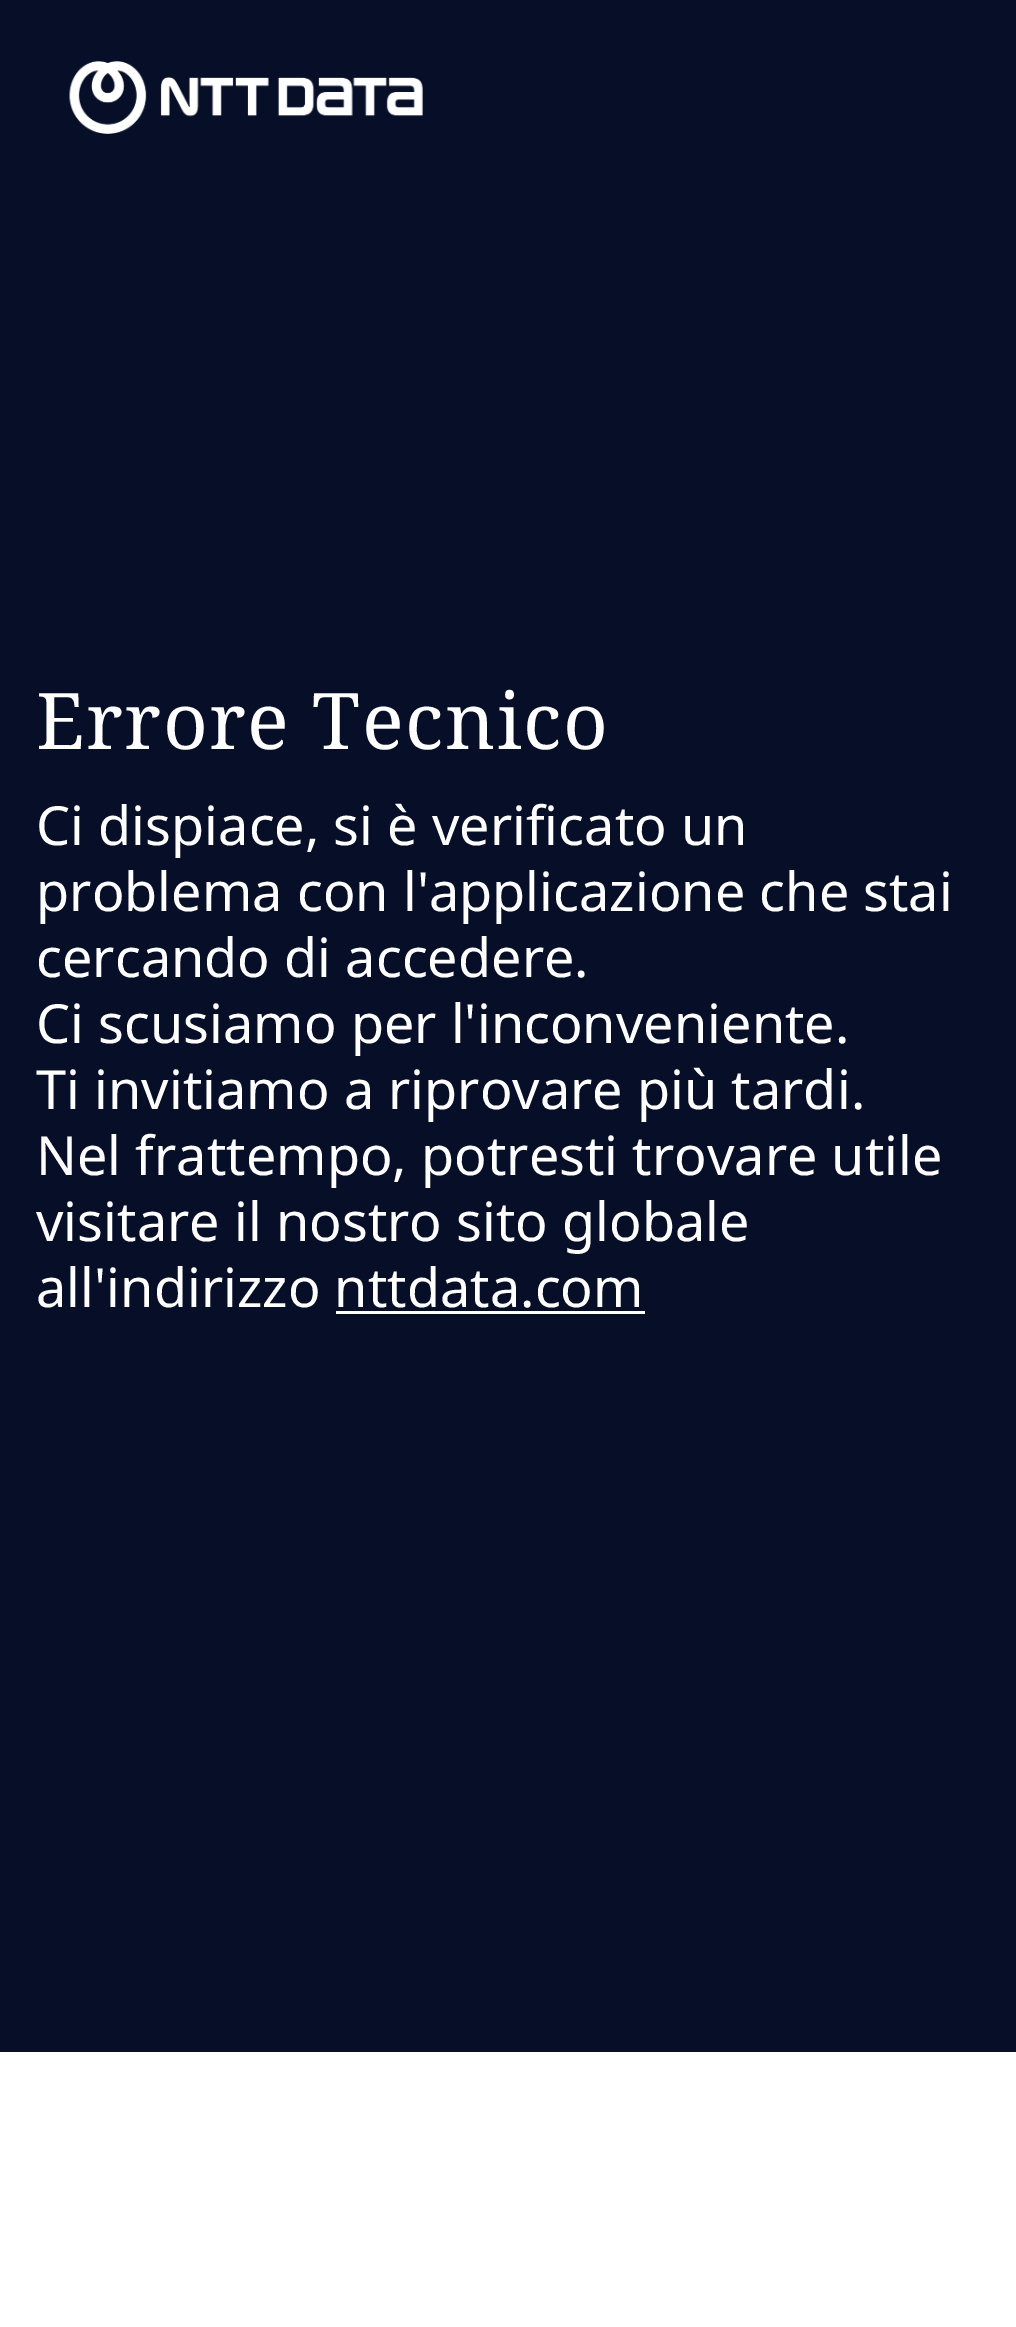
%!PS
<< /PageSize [1016 2327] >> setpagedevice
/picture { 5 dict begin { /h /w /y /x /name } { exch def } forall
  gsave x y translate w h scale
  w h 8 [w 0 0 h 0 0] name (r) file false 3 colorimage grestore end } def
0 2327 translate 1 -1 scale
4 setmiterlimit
1 setgray
0 0 1016 2327 rectfill
0.027 0.055 0.153 setrgbcolor
0 0 1016 2052 rectfill
(img1.rgb) 69 61 354 73 picture
/NotoSerif-Regular [78 0 0 -78 0 0] selectfont
1 setgray
36 749 moveto 1.5 0 (Errore Tecnico) ashow
/NotoSans-Regular [54 0 0 -54 0 0] selectfont
36 845 moveto (Ci dispiace, si è verificato un) show
36 911 moveto (problema con l'applicazione che stai) show
36 977 moveto (cercando di accedere.) show
36 1043 moveto (Ci scusiamo per l'inconveniente.) show
36 1109 moveto (Ti invitiamo a riprovare più tardi.) show
36 1175 moveto (Nel frattempo, potresti trovare utile) show
36 1241 moveto (visitare il nostro sito globale) show
36 1307 moveto (all'indirizzo nttdata.com) show
336 1311 309 3 rectfill
showpage
